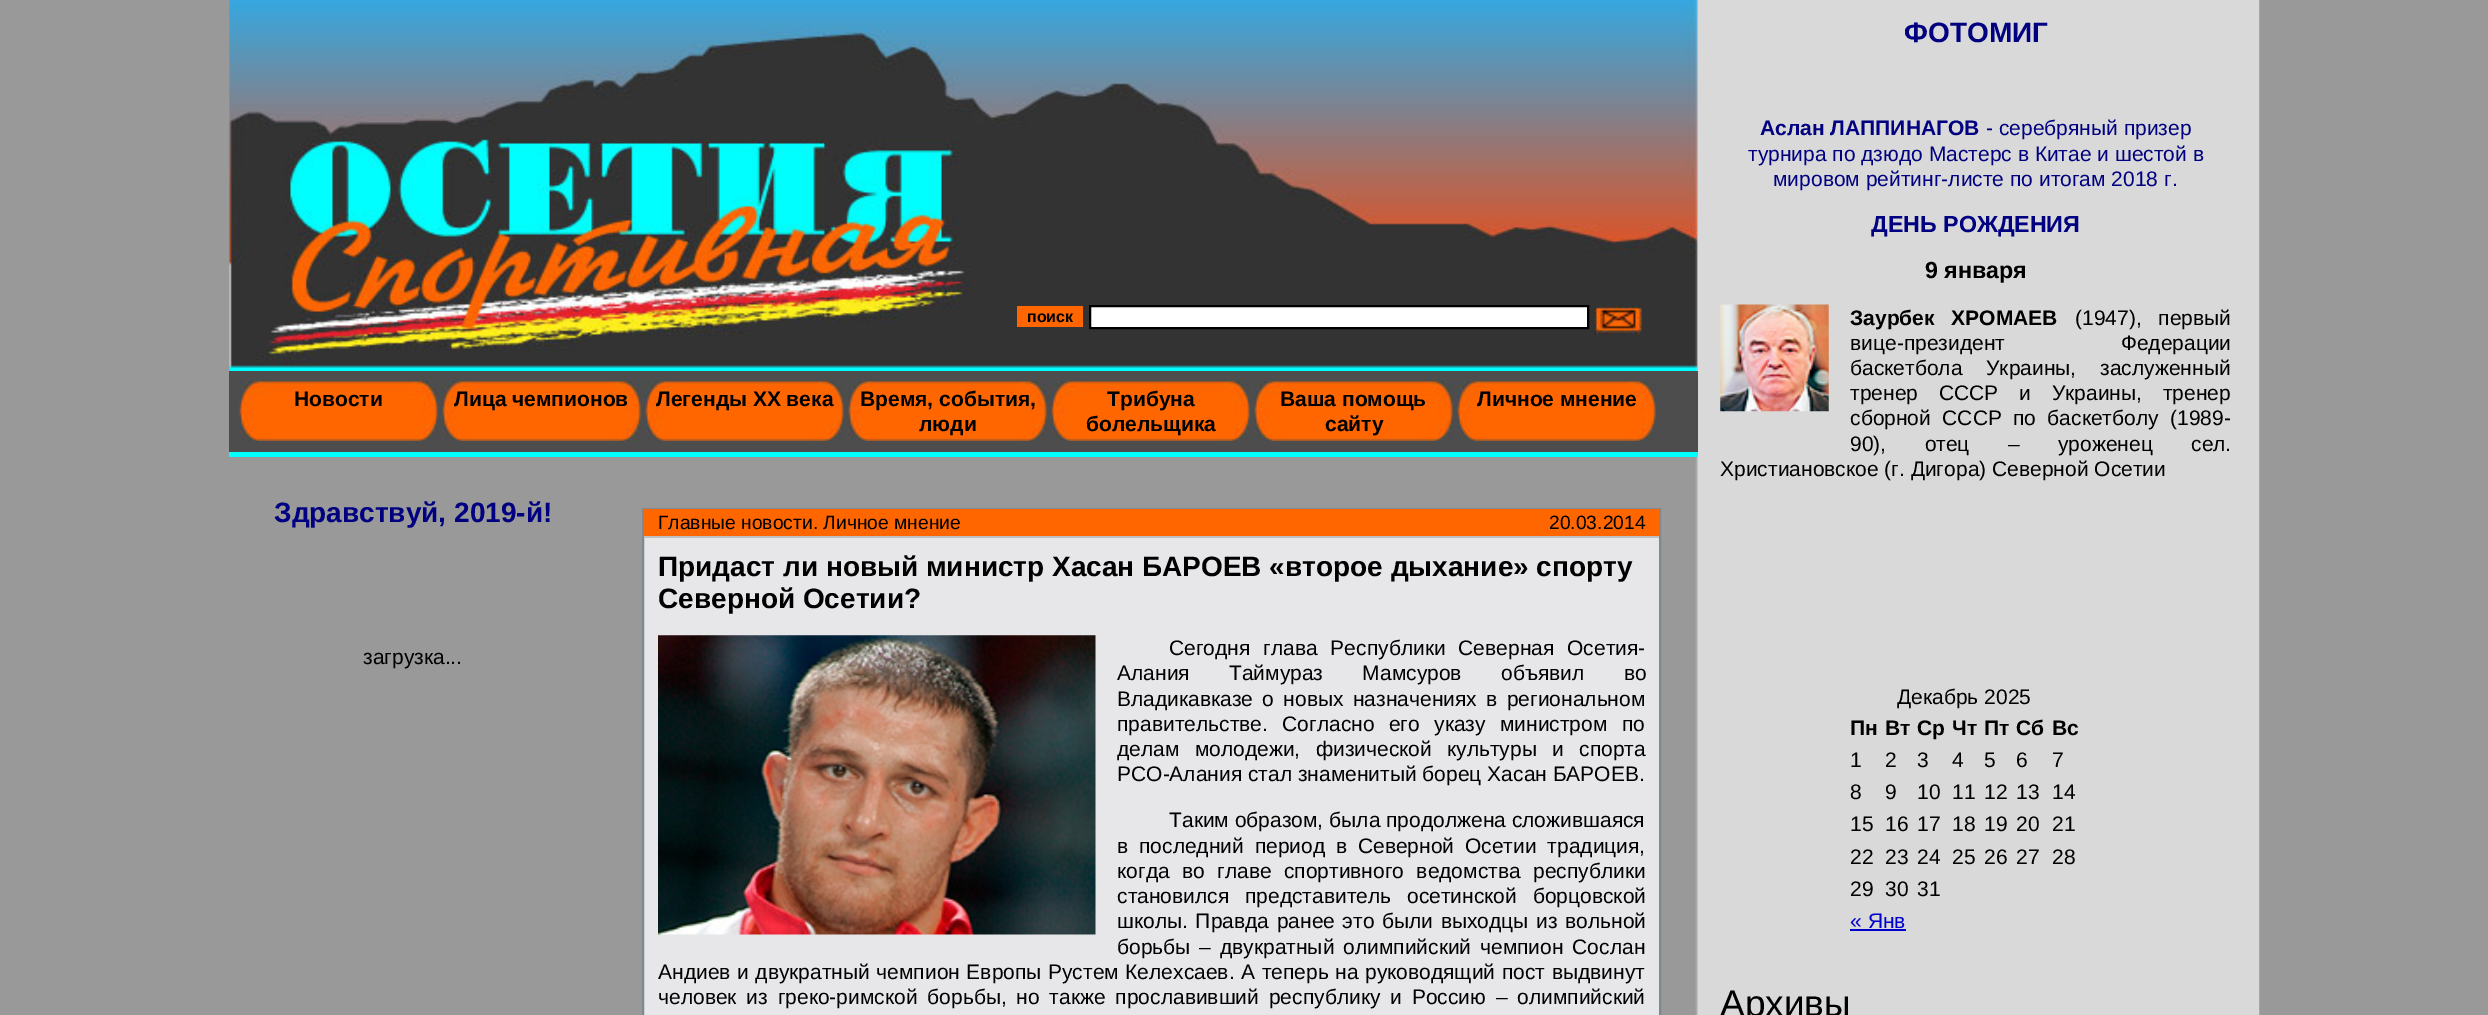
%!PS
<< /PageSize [2488 1015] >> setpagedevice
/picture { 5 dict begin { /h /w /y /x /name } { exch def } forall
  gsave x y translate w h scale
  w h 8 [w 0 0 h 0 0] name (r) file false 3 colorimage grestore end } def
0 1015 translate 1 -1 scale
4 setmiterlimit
0.6 setgray
0 0 2488 1015 rectfill
(img1.rgb) 1695 0 565 1015 picture
(img2.rgb) 229 0 1469 371 picture
1 0.4 0 setrgbcolor
1017 306 66 21 rectfill
/LiberationSans-Bold [16 0 0 -16 0 0] selectfont
0 setgray
1027 322 moveto (поиск) show
1 setgray
newpath 1090 306 moveto 1588 306 lineto 1588 328 lineto 1090 328 lineto closepath gsave fill grestore
0 setgray
2 setlinewidth
stroke
(img3.rgb) 1594 306 48 29 picture
0.302 setgray
229 371 1469 81 rectfill
0 1 1 setrgbcolor
229 452 1469 5 rectfill
(img4.rgb) 239 381 199 60 picture
/LiberationSans-Bold [21 0 0 -21 0 0] selectfont
0 setgray
294 406 moveto (Новости) show
(img4.rgb) 442 381 199 60 picture
454 406 moveto (Лица чемпионов) show
(img4.rgb) 645 381 199 60 picture
656 406 moveto (Легенды ХХ века) show
(img4.rgb) 848 381 199 60 picture
860 406 moveto (Время, события,) show
919 431 moveto (люди) show
(img5.rgb) 1051 381 199 60 picture
1107 406 moveto (Трибуна) show
1086 431 moveto (болельщика) show
(img4.rgb) 1254 381 199 60 picture
1280 406 moveto (Ваша помощь) show
1325 431 moveto (сайту) show
(img6.rgb) 1457 381 199 60 picture
1477 406 moveto (Личное мнение) show
/LiberationSans-Bold [28 0 0 -28 0 0] selectfont
0 0 0.502 setrgbcolor
274 522 moveto (Здравствуй, 2019-й!) show
/LiberationSans-Regular [21 0 0 -21 0 0] selectfont
0 setgray
363 664 moveto (загрузка...) show
0.906 0.906 0.914 setrgbcolor
644 538 1015 477 rectfill
0.506 0.533 0.565 setrgbcolor
643 509 1017 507 rectstroke
1 0.4 0 setrgbcolor
644 509 1015 27 rectfill
0.749 setgray
644 536 1015 2 rectfill
/LiberationSans-Regular [19.25 0 0 -19.25 0 0] selectfont
0 setgray
658 529 moveto (Главные новости. Личное мнение) show
1549 529 moveto (20.03.2014) show
/LiberationSans-Bold [28 0 0 -28 0 0] selectfont
658 576 moveto (Придаст ли новый министр Хасан БАРОЕВ «второе дыхание» спорту) show
658 608 moveto (Северной Осетии?) show
(img7.rgb) 658 635 438 300 picture
/LiberationSans-Regular [21 0 0 -21 0 0] selectfont
1169 655 moveto 7 0 32 (Сегодня глава Республики Северная Осетия-) widthshow
1117 680 moveto 33.5 0 32 (Алания Таймураз Мамсуров объявил во) widthshow
1117 706 moveto 3.5 0 32 (Владикавказе о новых назначениях в региональном) widthshow
1117 731 moveto 8.5 0 32 (правительстве. Согласно его указу министром по) widthshow
1117 756 moveto 9.5 0 32 (делам молодежи, физической культуры и спорта) widthshow
1117 781 moveto (РСО-Алания стал знаменитый борец Хасан БАРОЕВ.) show
1169 827 moveto (Таким образом, была продолжена сложившаяся) show
1117 853 moveto 5 0 32 (в последний период в Северной Осетии традиция,) widthshow
1117 878 moveto 6.5 0 32 (когда во главе спортивного ведомства республики) widthshow
1117 903 moveto 10 0 32 (становился представитель осетинской борцовской) widthshow
1117 928 moveto 1.75 0 32 (школы. Правда ранее это были выходцы из вольной) widthshow
1117 954 moveto 3 0 32 (борьбы – двукратный олимпийский чемпион Сослан) widthshow
658 979 moveto 0.75 0 32 (Андиев и двукратный чемпион Европы Рустем Келехсаев. А теперь на руководящий пост выдвинут) widthshow
658 1004 moveto 4 0 32 (человек из греко-римской борьбы, но также прославивший республику и Россию – олимпийский) widthshow
/LiberationSans-Bold [28 0 0 -28 0 0] selectfont
0 0 0.502 setrgbcolor
1904 42 moveto (ФОТОМИГ) show
/LiberationSans-Bold [21 0 0 -21 0 0] selectfont
1760 135 moveto (Аслан ЛАППИНАГОВ) show
/LiberationSans-Regular [21 0 0 -21 0 0] selectfont
1986 135 moveto (- серебряный призер) show
1748 161 moveto (турнира по дзюдо Мастерс в Китае и шестой в) show
1773 186 moveto (мировом рейтинг-листе по итогам 2018 г.) show
/LiberationSans-Bold [23.25 0 0 -23.25 0 0] selectfont
1871 232 moveto (ДЕНЬ РОЖДЕНИЯ) show
0 setgray
1925 278 moveto (9 января) show
(img8.rgb) 1720 304 109 108 picture
/LiberationSans-Bold [21 0 0 -21 0 0] selectfont
1850 325 moveto 11 0 32 (Заурбек ХРОМАЕВ) widthshow
/LiberationSans-Regular [21 0 0 -21 0 0] selectfont
2075 325 moveto 11 0 32 (\(1947\), первый) widthshow
1850 350 moveto 110 0 32 (вице-президент Федерации) widthshow
1850 375 moveto 18 0 32 (баскетбола Украины, заслуженный) widthshow
1850 400 moveto 15 0 32 (тренер СССР и Украины, тренер) widthshow
1850 425 moveto 5.5 0 32 (сборной СССР по баскетболу \(1989-) widthshow
1850 451 moveto 32.5 0 32 (90\), отец – уроженец сел.) widthshow
1720 476 moveto (Христиановское \(г. Дигора\) Северной Осетии) show
1897 704 moveto (Декабрь 2025) show
/LiberationSans-Bold [21 0 0 -21 0 0] selectfont
1850 735 moveto (Пн) show
1885 735 moveto (Вт) show
1917 735 moveto (Ср) show
1952 735 moveto (Чт) show
1984 735 moveto (Пт) show
2016 735 moveto (Сб) show
2052 735 moveto (Вс) show
/LiberationSans-Regular [21 0 0 -21 0 0] selectfont
1850 767 moveto (1) show
1885 767 moveto (2) show
1917 767 moveto (3) show
1952 767 moveto (4) show
1984 767 moveto (5) show
2016 767 moveto (6) show
2052 767 moveto (7) show
1850 799 moveto (8) show
1885 799 moveto (9) show
1917 799 moveto (10) show
1952 799 moveto (11) show
1984 799 moveto (12) show
2016 799 moveto (13) show
2052 799 moveto (14) show
1850 831 moveto (15) show
1885 831 moveto (16) show
1917 831 moveto (17) show
1952 831 moveto (18) show
1984 831 moveto (19) show
2016 831 moveto (20) show
2052 831 moveto (21) show
1850 864 moveto (22) show
1885 864 moveto (23) show
1917 864 moveto (24) show
1952 864 moveto (25) show
1984 864 moveto (26) show
2016 864 moveto (27) show
2052 864 moveto (28) show
1850 896 moveto (29) show
1885 896 moveto (30) show
1917 896 moveto (31) show
0 0 0.8 setrgbcolor
1850 928 moveto (« Янв) show
1850 929 56 2 rectfill
/LiberationSans-Regular [37 0 0 -37 0 0] selectfont
0 setgray
1720 1016 moveto (Архивы) show
showpage
